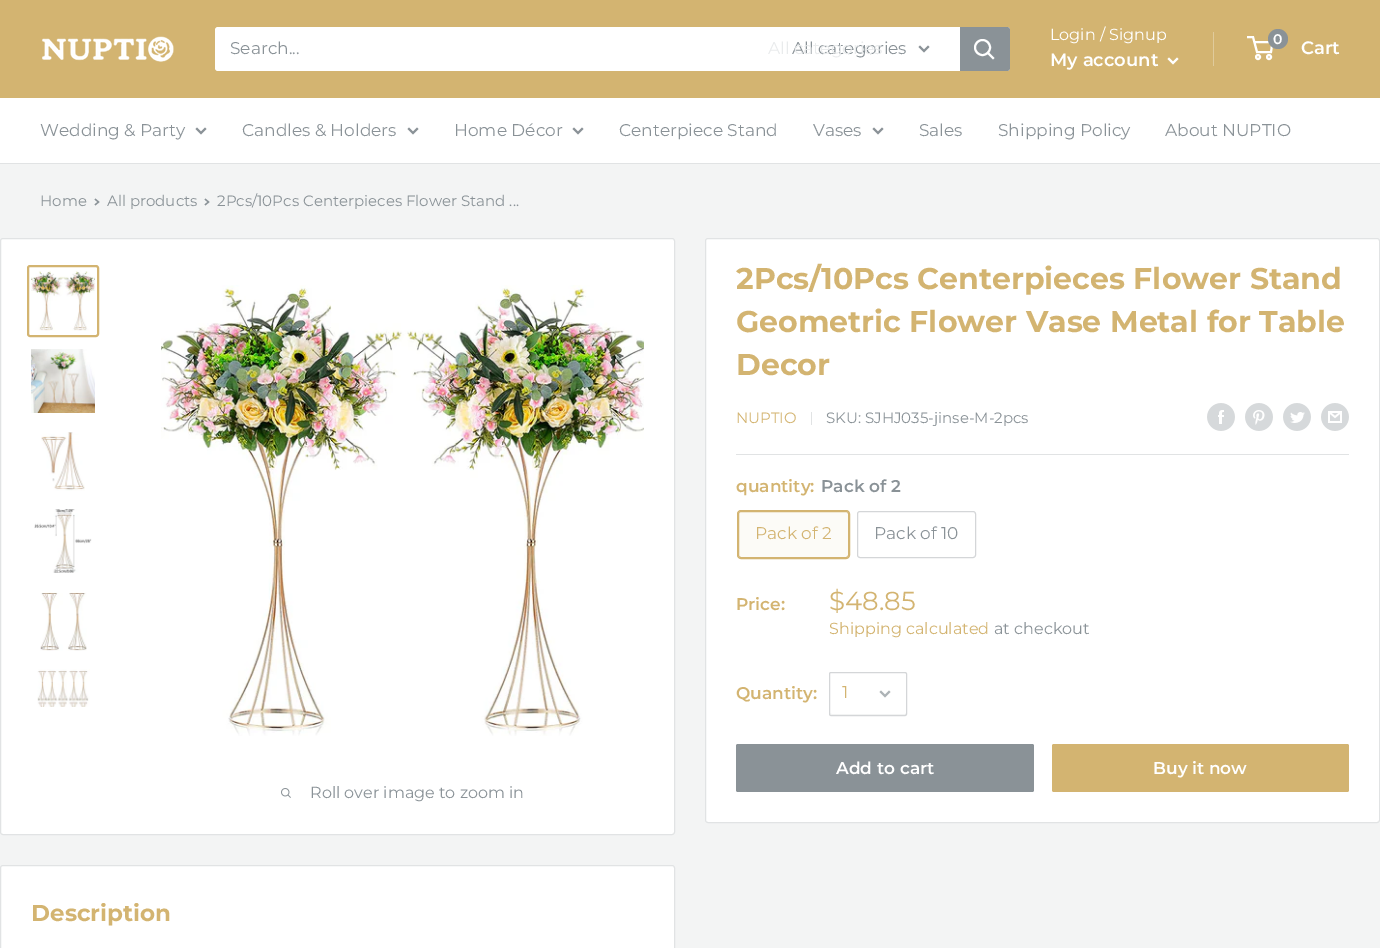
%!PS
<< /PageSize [1380 948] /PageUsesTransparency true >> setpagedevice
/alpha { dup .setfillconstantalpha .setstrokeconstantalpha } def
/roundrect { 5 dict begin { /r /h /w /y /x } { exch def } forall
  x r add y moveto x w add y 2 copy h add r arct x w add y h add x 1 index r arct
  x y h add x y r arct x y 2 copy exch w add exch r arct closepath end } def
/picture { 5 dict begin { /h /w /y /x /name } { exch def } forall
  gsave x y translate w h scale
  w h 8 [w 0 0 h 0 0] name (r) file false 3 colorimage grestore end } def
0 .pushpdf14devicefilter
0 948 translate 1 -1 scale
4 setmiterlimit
0.953 0.957 0.957 setrgbcolor
0 0 1380 948 rectfill
0.827 0.706 0.443 setrgbcolor
0 0 1380 98 rectfill
(img1.rgb) 42 36 132 26 picture
1 setgray
215 27 795 44 3 roundrect fill
/Montserrat-Regular [17 0 0 -17 0 0] selectfont
0.541 0.573 0.592 setrgbcolor
230 54 moveto (Search...) show
792 54 moveto (All categories) show
0.914 0.922 0.925 setrgbcolor
768 54 moveto (All categories) show
0.541 0.573 0.592 setrgbcolor
2 setlinewidth
2 setlinecap
newpath 928 47 moveto 924 51 lineto 920 47 lineto stroke
newpath 960 27 moveto 1007 27 lineto 1008.5 27 1010 28.5 1010 30 curveto 1010 68 lineto 1010 69.5 1008.5 71 1007 71 curveto 960 71 lineto closepath fill
1 setgray
newpath 993 58 moveto 988 53 lineto stroke
0 setlinecap
newpath 982.5 47.5 7.5 0 360 arc closepath stroke
/Montserrat-Regular [16 0 0 -16 0 0] selectfont
1050 40 moveto (Login / Signup) show
0.878 0.796 0.612 setrgbcolor
1213 32 1 34 rectfill
/Montserrat-SemiBold [18 0 0 -18 0 0] selectfont
1 setgray
1050 66 moveto (My account) show
2 setlinecap
newpath 1177 59 moveto 1173 63 lineto 1169 59 lineto stroke
0 setlinecap
newpath 1258 57 2 0 360 arc closepath stroke
newpath 1269 57 2 0 360 arc closepath stroke
newpath 1254.5 42 moveto 1272.5 42 lineto 1271 52 lineto 1257 52 lineto 1253 37 lineto 1247 37 lineto stroke
0.541 0.573 0.592 setrgbcolor
newpath 1278 39 10 0 360 arc closepath fill
/Montserrat-SemiBold [14 0 0 -14 0 0] selectfont
1 setgray
1273 44 moveto (0) show
/Montserrat-SemiBold [18 0 0 -18 0 0] selectfont
1301 54 moveto (Cart) show
0 98 1380 65 rectfill
0.882 0.89 0.894 setrgbcolor
0 163 1380 1 rectfill
/Montserrat-Regular [17 0 0 -17 0 0] selectfont
0.541 0.573 0.592 setrgbcolor
40 136 moveto (Wedding & Party) show
2 setlinecap
newpath 205 129 moveto 201 133 lineto 197 129 lineto stroke
242 136 moveto (Candles & Holders) show
newpath 417 129 moveto 413 133 lineto 409 129 lineto stroke
454 136 moveto (Home Décor) show
newpath 582 129 moveto 578 133 lineto 574 129 lineto stroke
619 136 moveto (Centerpiece Stand) show
813 136 moveto (Vases) show
newpath 882 129 moveto 878 133 lineto 874 129 lineto stroke
919 136 moveto (Sales) show
998 136 moveto (Shipping Policy) show
1165 136 moveto (About NUPTIO) show
/Montserrat-Regular [15 0 0 -15 0 0] selectfont
40 206 moveto (Home) show
1.3 setlinewidth
newpath 95.5 199.5 moveto 98.5 202 lineto 95.5 204.5 lineto stroke
107 206 moveto (All products) show
newpath 205.5 199.5 moveto 208.5 202 lineto 205.5 204.5 lineto stroke
217 206 moveto (2Pcs/10Pcs Centerpieces Flower Stand ...) show
1 setgray
705.5 238.5 674 584 2.5 roundrect gsave fill grestore
0.882 0.89 0.894 setrgbcolor
1 setlinewidth
0 setlinecap
stroke
/Montserrat-Bold [30 0 0 -30 0 0] selectfont
0.827 0.706 0.443 setrgbcolor
736 289 moveto (2Pcs/10Pcs Centerpieces Flower Stand) show
736 332 moveto (Geometric Flower Vase Metal for Table) show
736 375 moveto (Decor) show
/Montserrat-Regular [15 0 0 -15 0 0] selectfont
736 423 moveto (NUPTIO) show
0.882 0.89 0.894 setrgbcolor
811 412 1 13 rectfill
0.541 0.573 0.592 setrgbcolor
826 423 moveto (SKU: SJHJ035-jinse-M-2pcs) show
(img2.rgb) 1207 403 28 28 picture
(img3.rgb) 1245 403 28 28 picture
(img4.rgb) 1283 403 28 28 picture
(img5.rgb) 1321 403 28 28 picture
0.882 0.89 0.894 setrgbcolor
736 454 613 1 rectfill
/Montserrat-SemiBold [17 0 0 -17 0 0] selectfont
0.827 0.706 0.443 setrgbcolor
736 492 moveto (quantity:) show
0.541 0.573 0.592 setrgbcolor
821 492 moveto (Pack of 2) show
0.827 0.706 0.443 setrgbcolor
737.5 510.5 112 48 3.5 roundrect stroke
0.06 alpha
738 511 111 47 rectfill
1 alpha
738.5 511.5 110 46 2.5 roundrect stroke
/Montserrat-Regular [17 0 0 -17 0 0] selectfont
755 539 moveto (Pack of 2) show
0.831 0.839 0.847 setrgbcolor
857.5 511.5 118 46 2.5 roundrect stroke
0.541 0.573 0.592 setrgbcolor
874 539 moveto (Pack of 10) show
/Montserrat-SemiBold [17 0 0 -17 0 0] selectfont
0.827 0.706 0.443 setrgbcolor
736 610 moveto (Price:) show
/Montserrat-Regular [26 0 0 -26 0 0] selectfont
829 610 moveto ($48.85) show
/Montserrat-Regular [16 0 0 -16 0 0] selectfont
829 634 moveto (Shipping calculated) show
0.541 0.573 0.592 setrgbcolor
994 634 moveto (at checkout) show
/Montserrat-SemiBold [17 0 0 -17 0 0] selectfont
0.827 0.706 0.443 setrgbcolor
736 699 moveto (Quantity:) show
0.949 0.953 0.953 setrgbcolor
newpath 830 713 moveto 831 715 lineto 905 715 lineto 906 715 906 714 906 713 curveto 905 714 lineto 840 714 lineto 838 714 831 715 830 713 curveto closepath fill
0.831 0.839 0.847 setrgbcolor
829.5 672.5 77 43 1.5 roundrect stroke
/Montserrat-Regular [17 0 0 -17 0 0] selectfont
0.827 0.706 0.443 setrgbcolor
842 698 moveto (1) show
0.678 0.702 0.714 setrgbcolor
2 setlinewidth
2 setlinecap
newpath 889 692 moveto 885 696 lineto 881 692 lineto stroke
0.541 0.573 0.592 setrgbcolor
736 744 298 48 2 roundrect fill
/Montserrat-SemiBold [17 0 0 -17 0 0] selectfont
1 setgray
836 774 moveto (Add to cart) show
0.827 0.706 0.443 setrgbcolor
1052 744 297 48 2 roundrect fill
1 setgray
1153 774 moveto (Buy it now) show
0.5 238.5 674 596 2.5 roundrect gsave fill grestore
0.882 0.89 0.894 setrgbcolor
1 setlinewidth
0 setlinecap
stroke
0.827 0.706 0.443 setrgbcolor
2 setlinewidth
28 266 70 70 2 roundrect stroke
(img6.rgb) 31 270 64 61 picture
(img7.rgb) 31 349 64 64 picture
(img8.rgb) 41 432 44 59 picture
(img9.rgb) 34 509 58 64 picture
(img10.rgb) 40 592 47 59 picture
(img11.rgb) 37 669 53 38 picture
(img12.rgb) 161 285 483 451 picture
(img13.rgb) 281 788 10 10 picture
/Montserrat-Regular [16 0 0 -16 0 0] selectfont
0.541 0.573 0.592 setrgbcolor
310 798 moveto (Roll over image to zoom in) show
1 setgray
0.5 865.5 674 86 2.5 roundrect gsave fill grestore
0.882 0.89 0.894 setrgbcolor
1 setlinewidth
stroke
/Montserrat-Bold [23 0 0 -23 0 0] selectfont
0.827 0.706 0.443 setrgbcolor
31 921 moveto (Description) show
.poppdf14devicefilter showpage
